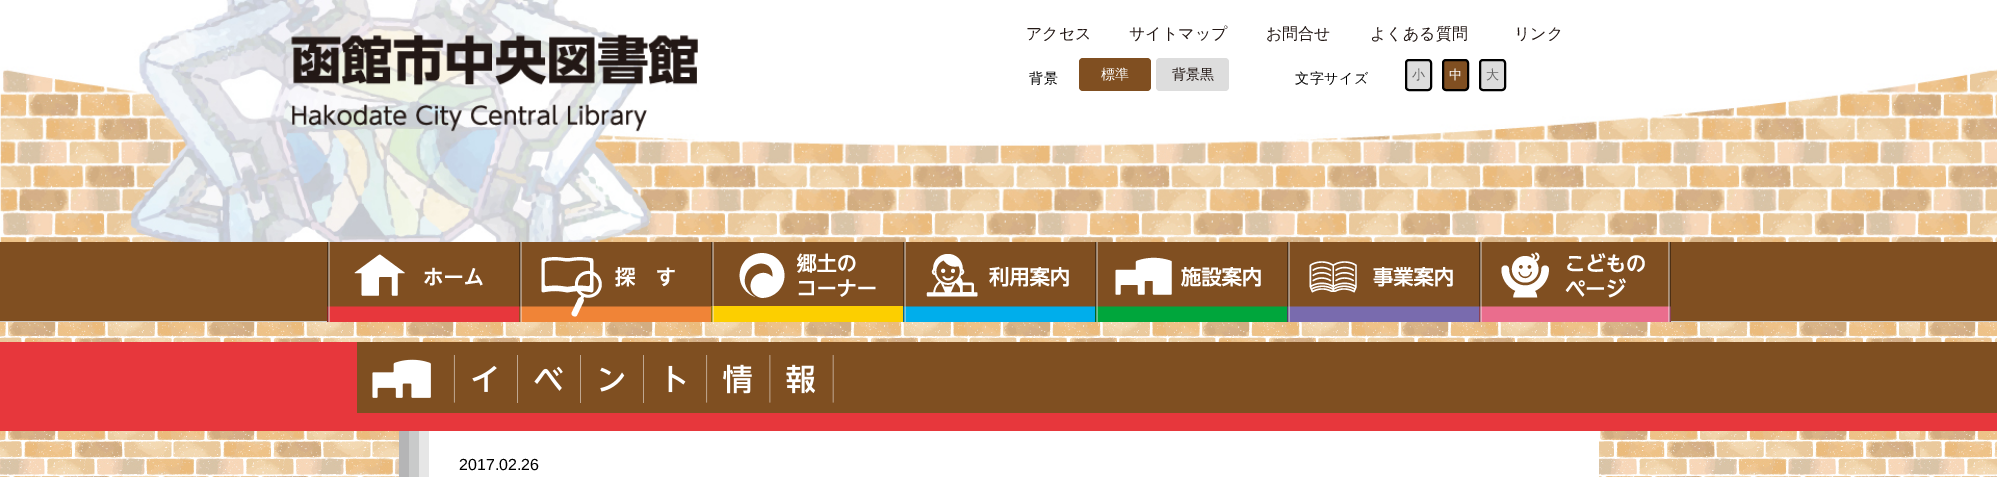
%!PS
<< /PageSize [1997 477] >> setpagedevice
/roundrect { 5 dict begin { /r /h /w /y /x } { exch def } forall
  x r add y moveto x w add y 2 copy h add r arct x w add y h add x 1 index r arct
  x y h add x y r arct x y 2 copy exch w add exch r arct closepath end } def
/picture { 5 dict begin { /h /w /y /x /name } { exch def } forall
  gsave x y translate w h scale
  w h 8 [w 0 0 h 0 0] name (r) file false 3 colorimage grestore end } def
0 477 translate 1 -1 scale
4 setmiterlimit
1 setgray
0 0 1997 477 rectfill
(img1.rgb) 0 0 1997 242 picture
/WenQuanYiZenHei-Medium [16 0 0 -16 0 0] selectfont
0.137 0.094 0.082 setrgbcolor
1026 39 moveto (アクセス) show
1129 39 moveto (サイトマップ) show
1266 39 moveto (お問合せ) show
1370 39 moveto (よくある質問) show
1514 39 moveto (リンク) show
/WenQuanYiZenHei-Medium [14 0 0 -14 0 0] selectfont
0 setgray
1029 83 moveto 0.5 0 (背景) ashow
0.502 0.31 0.129 setrgbcolor
1079 58 72 33 4 roundrect fill
1 setgray
1101 79 moveto (標準) show
0.867 setgray
1156 58 73 33 4 roundrect fill
0.137 0.094 0.082 setrgbcolor
1172 79 moveto (背景黒) show
0 setgray
1295 83 moveto 0.5 0 (文字サイズ) ashow
0.867 setgray
1406 60 25 30 3 roundrect gsave fill grestore
0 setgray
2 setlinewidth
stroke
/WenQuanYiZenHei-Medium [13 0 0 -13 0 0] selectfont
0.4 setgray
1412 79 moveto (小) show
0.502 0.31 0.129 setrgbcolor
1443 60 25 30 3 roundrect gsave fill grestore
0 setgray
stroke
1 setgray
1449 79 moveto (中) show
0.867 setgray
1480 60 25 30 3 roundrect gsave fill grestore
0 setgray
stroke
0.4 setgray
1486 79 moveto (大) show
0.502 0.31 0.129 setrgbcolor
0 242 1997 79 rectfill
0.8 setgray
0 321 1997 1 rectfill
(img2.rgb) 327 242 192 80 picture
(img3.rgb) 519 242 192 80 picture
(img4.rgb) 711 242 192 80 picture
(img5.rgb) 903 242 192 80 picture
(img6.rgb) 1095 242 192 80 picture
(img7.rgb) 1287 242 192 80 picture
(img8.rgb) 1479 242 192 80 picture
(img9.rgb) 0 322 1997 155 picture
0.498 0.31 0.129 setrgbcolor
357 342 1640 71 rectfill
(img10.rgb) 0 342 1997 89 picture
0.71 0.71 0.714 setrgbcolor
399 431 10 46 rectfill
0.788 0.792 0.792 setrgbcolor
409 431 10 46 rectfill
0.902 setgray
419 431 10 46 rectfill
1 setgray
429 431 1170 46 rectfill
/LiberationSans-Regular [16 0 0 -16 0 0] selectfont
0 setgray
459 470 moveto (2017.02.26) show
showpage
